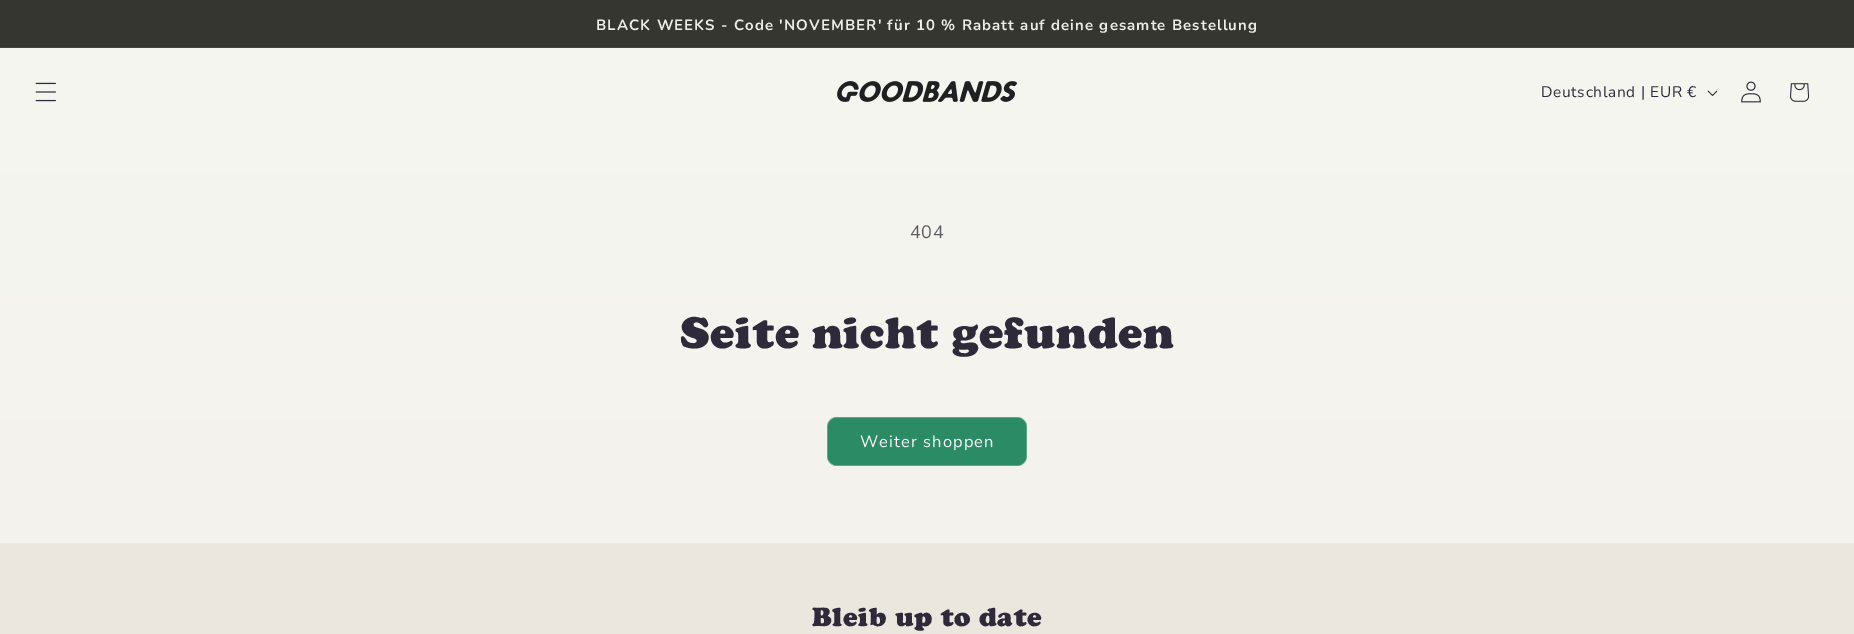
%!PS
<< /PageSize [1854 634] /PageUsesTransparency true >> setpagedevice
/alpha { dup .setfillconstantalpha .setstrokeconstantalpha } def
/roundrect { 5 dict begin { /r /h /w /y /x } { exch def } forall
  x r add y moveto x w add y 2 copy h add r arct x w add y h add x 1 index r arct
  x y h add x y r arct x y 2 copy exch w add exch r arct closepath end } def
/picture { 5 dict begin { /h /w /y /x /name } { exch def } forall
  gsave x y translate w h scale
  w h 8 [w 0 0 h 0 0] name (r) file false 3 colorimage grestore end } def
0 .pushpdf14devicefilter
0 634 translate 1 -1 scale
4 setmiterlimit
1 setgray
0 0 1854 634 rectfill
gsave newpath 0 48 moveto 1854 48 lineto 1854 543 lineto 0 543 lineto closepath clip newpath
<< /ShadingType 2 /ColorSpace /DeviceRGB /Coords [927 0 927 634] /Extend [true true] /Function << /FunctionType 2 /Domain [0 1] /C0 [0.961 0.965 0.941] /C1 [0.957 0.945 0.925] /N 1 >> >> shfill grestore
0.212 0.212 0.192 setrgbcolor
0 0 1854 47 rectfill
0.271 0.271 0.251 setrgbcolor
0 47 1854 1 rectfill
/Nunito-Bold [14.95 0 0 -14.95 0 0] selectfont
0.929 0.925 0.906 setrgbcolor
596 30 moveto 1.1 0 (BLACK WEEKS - Code 'NOVEMBER' für 10 % Rabatt auf deine gesamte Bestellung) ashow
(img1.rgb) 35 82 21 20 picture
(img2.rgb) 837 81 180 21 picture
/Nunito-ExtraLight [15.4 0 0 -15.4 0 0] selectfont
0.18 0.165 0.224 setrgbcolor
1541 97 moveto 0.7 0 (Deutschland | EUR €) ashow
(img3.rgb) 1707 90 11 6 picture
(img4.rgb) 1741 81 20 22 picture
(img5.rgb) 1790 83 20 19 picture
/Nunito-ExtraLight [18 0 0 -18 0 0] selectfont
0.376 0.365 0.4 setrgbcolor
910 238 moveto 0.7 0 (404) ashow
/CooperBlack-Black [46 0 0 -46 0 0] selectfont
0.18 0.165 0.224 setrgbcolor
680 348 moveto 0.7 0 (Seite nicht gefunden) ashow
0.165 0.545 0.392 setrgbcolor
827 417 200 49 10 roundrect fill
0.45 alpha
1 setgray
0.3 setlinewidth
827.15 417.15 199.7 48.7 9.85 roundrect stroke
/Nunito-ExtraLight [16.5 0 0 -16.5 0 0] selectfont
1 alpha
860 447 moveto 1.1 0 (Weiter shoppen) ashow
0.922 0.906 0.875 setrgbcolor
0 543 1854 91 rectfill
/CooperBlack-Black [27.5 0 0 -27.5 0 0] selectfont
0.18 0.165 0.224 setrgbcolor
812 626 moveto 0.7 0 (Bleib up to date) ashow
.poppdf14devicefilter showpage
